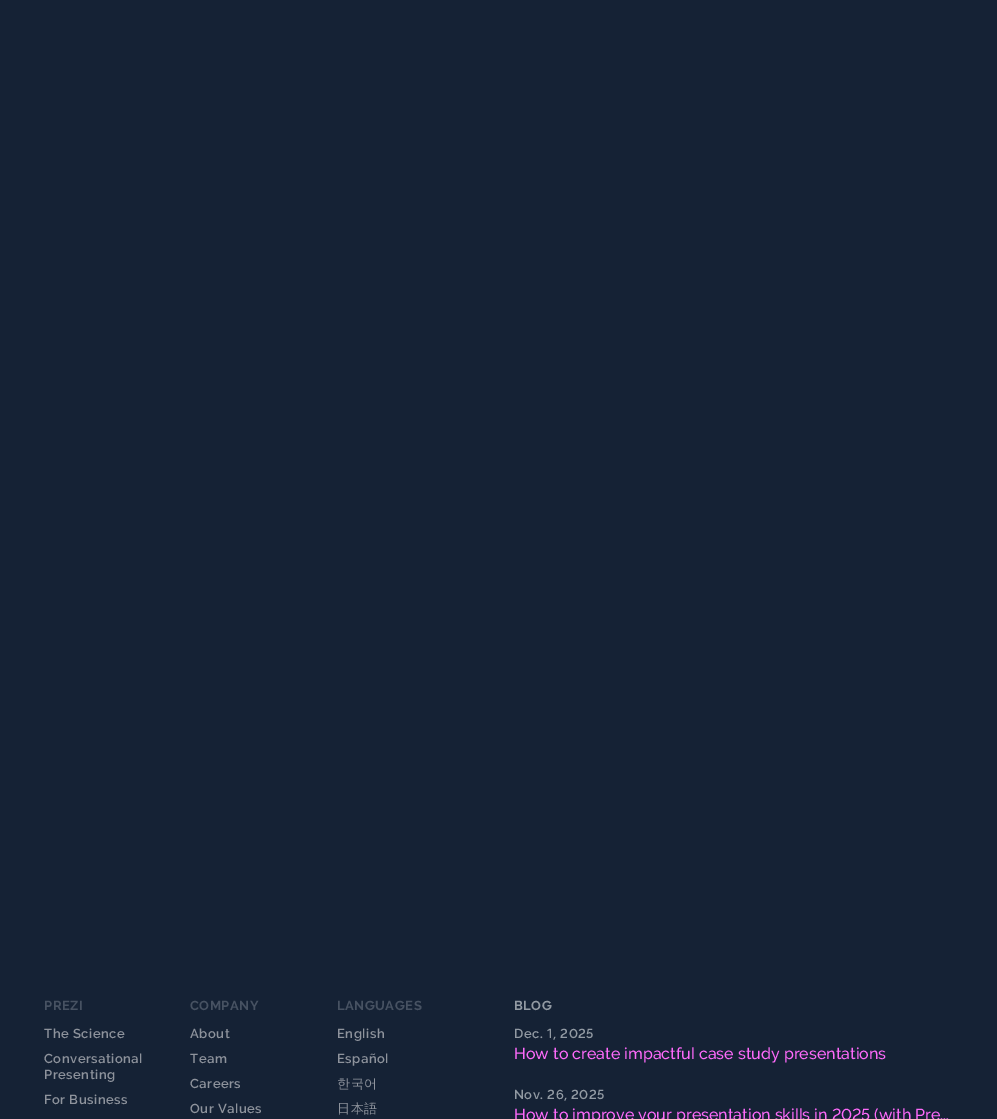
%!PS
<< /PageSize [997 1119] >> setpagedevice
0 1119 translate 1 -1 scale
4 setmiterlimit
0.082 0.133 0.208 setrgbcolor
0 0 997 1119 rectfill
/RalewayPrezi-Bold [13 0 0 -13 0 0] selectfont
0.278 0.322 0.384 setrgbcolor
44 1010 moveto 0.5 0 (PREZI) ashow
/RalewayPrezi-SemiBold [13 0 0 -13 0 0] selectfont
0.557 0.576 0.612 setrgbcolor
44 1038 moveto 0.5 0 (The Science) ashow
44 1063 moveto 0.5 0 (Conversational) ashow
44 1079 moveto 0.5 0 (Presenting) ashow
44 1104 moveto 0.5 0 (For Business) ashow
/RalewayPrezi-Bold [13 0 0 -13 0 0] selectfont
0.278 0.322 0.384 setrgbcolor
190 1010 moveto 0.5 0 (COMPANY) ashow
/RalewayPrezi-SemiBold [13 0 0 -13 0 0] selectfont
0.557 0.576 0.612 setrgbcolor
190 1038 moveto 0.5 0 (About) ashow
190 1063 moveto 0.5 0 (Team) ashow
190 1088 moveto 0.5 0 (Careers) ashow
190 1113 moveto 0.5 0 (Our Values) ashow
/RalewayPrezi-Bold [13 0 0 -13 0 0] selectfont
0.278 0.322 0.384 setrgbcolor
337 1010 moveto 0.5 0 (LANGUAGES) ashow
/RalewayPrezi-SemiBold [13 0 0 -13 0 0] selectfont
0.557 0.576 0.612 setrgbcolor
337 1038 moveto 0.5 0 (English) ashow
337 1063 moveto 0.5 0 (Español) ashow
/WenQuanYiZenHei-Medium [13 0 0 -13 0 0] selectfont
337 1088 moveto 0.5 0 (한국어) ashow
337 1113 moveto 0.5 0 (日本語) ashow
/RalewayPrezi-Bold [13 0 0 -13 0 0] selectfont
0.573 0.604 0.639 setrgbcolor
514 1010 moveto 0.5 0 (BLOG) ashow
/RalewayPrezi-SemiBold [13 0 0 -13 0 0] selectfont
514 1038 moveto 0.5 0 (Dec. 1, 2025) ashow
/RalewayPrezi-Medium [16 0 0 -16 0 0] selectfont
0.992 0.416 0.98 setrgbcolor
514 1059 moveto (How to create impactful case study presentations) show
/RalewayPrezi-SemiBold [13 0 0 -13 0 0] selectfont
0.573 0.604 0.639 setrgbcolor
514 1099 moveto 0.5 0 (Nov. 26, 2025) ashow
/RalewayPrezi-Medium [16 0 0 -16 0 0] selectfont
0.992 0.416 0.98 setrgbcolor
514 1120 moveto (How to improve your presentation skills in 2025 \(with Pre…) show
showpage
